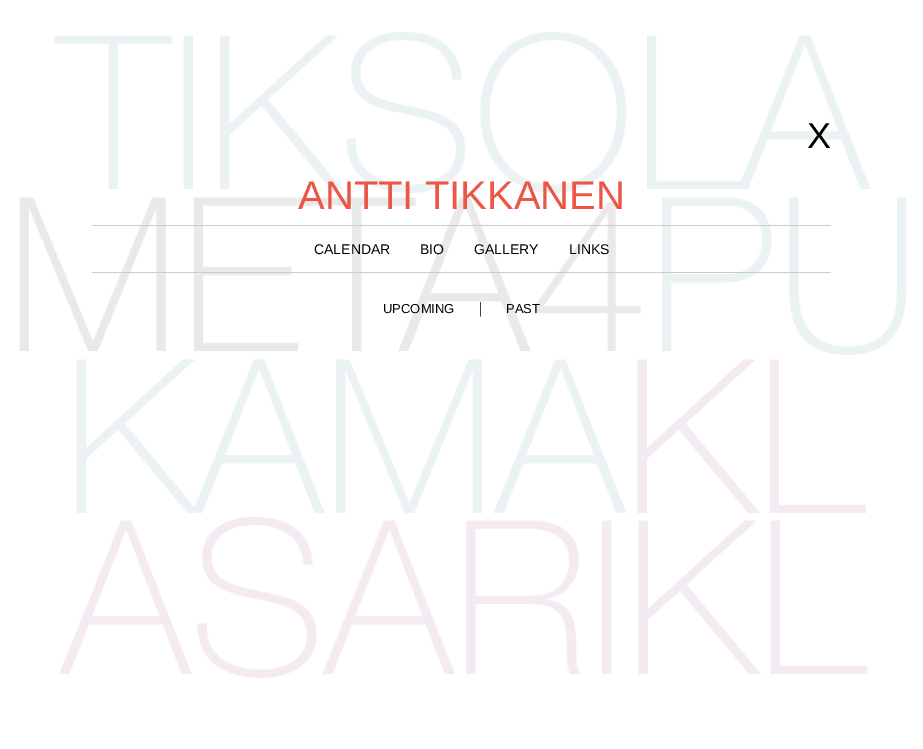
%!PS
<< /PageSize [923 749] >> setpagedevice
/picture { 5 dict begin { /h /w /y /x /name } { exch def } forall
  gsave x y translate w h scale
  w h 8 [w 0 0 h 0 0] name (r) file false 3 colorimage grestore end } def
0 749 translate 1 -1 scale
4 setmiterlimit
1 setgray
0 0 923 749 rectfill
(img1.rgb) 19 32 888 646 picture
/LiberationSans-Regular [36 0 0 -36 0 0] selectfont
0 setgray
807 148 moveto (X) show
/LiberationSans-Regular [40 0 0 -40 0 0] selectfont
0.925 0.337 0.275 setrgbcolor
298 209 moveto (ANTTI TIKKANEN) show
0.8 setgray
92 225 739 1 rectfill
92 272 739 1 rectfill
/LiberationSans-Regular [14 0 0 -14 0 0] selectfont
0 setgray
314 254 moveto (CALENDAR) show
420 254 moveto (BIO) show
474 254 moveto (GALLERY) show
569 254 moveto (LINKS) show
/LiberationSans-Regular [13 0 0 -13 0 0] selectfont
383 313 moveto (UPCOMING) show
/LiberationSerif-Regular [16 0 0 -16 0 0] selectfont
479 313 moveto (|) show
/LiberationSans-Regular [13 0 0 -13 0 0] selectfont
506 313 moveto (PAST) show
showpage
